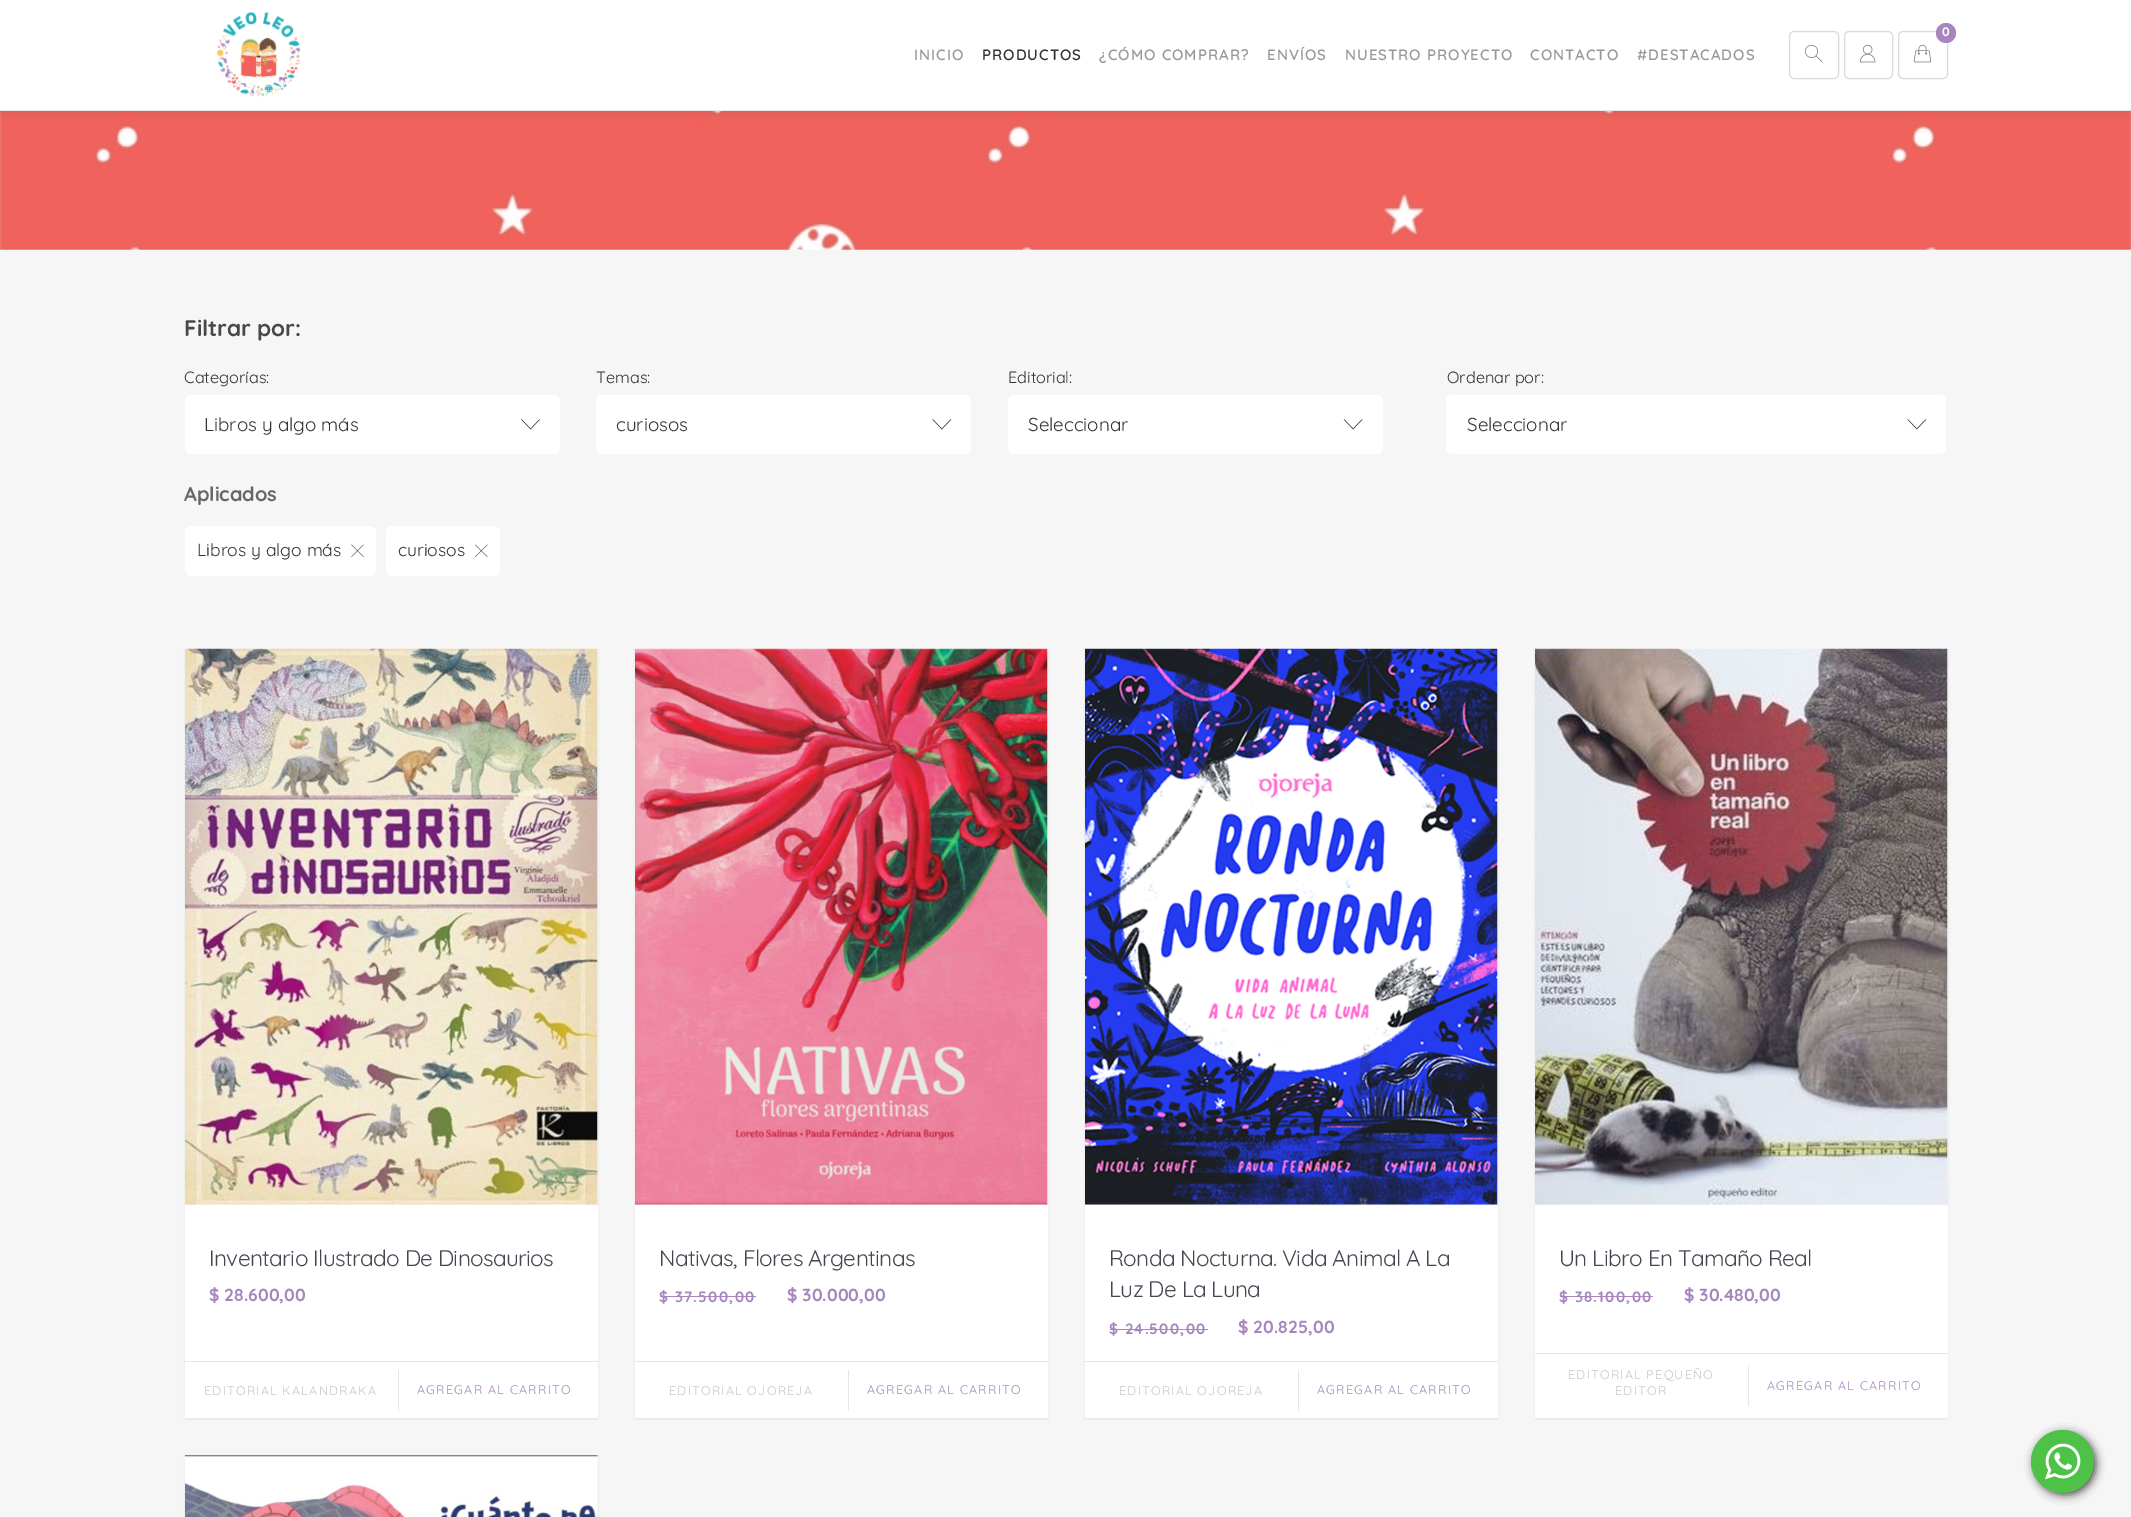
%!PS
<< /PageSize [2131 1517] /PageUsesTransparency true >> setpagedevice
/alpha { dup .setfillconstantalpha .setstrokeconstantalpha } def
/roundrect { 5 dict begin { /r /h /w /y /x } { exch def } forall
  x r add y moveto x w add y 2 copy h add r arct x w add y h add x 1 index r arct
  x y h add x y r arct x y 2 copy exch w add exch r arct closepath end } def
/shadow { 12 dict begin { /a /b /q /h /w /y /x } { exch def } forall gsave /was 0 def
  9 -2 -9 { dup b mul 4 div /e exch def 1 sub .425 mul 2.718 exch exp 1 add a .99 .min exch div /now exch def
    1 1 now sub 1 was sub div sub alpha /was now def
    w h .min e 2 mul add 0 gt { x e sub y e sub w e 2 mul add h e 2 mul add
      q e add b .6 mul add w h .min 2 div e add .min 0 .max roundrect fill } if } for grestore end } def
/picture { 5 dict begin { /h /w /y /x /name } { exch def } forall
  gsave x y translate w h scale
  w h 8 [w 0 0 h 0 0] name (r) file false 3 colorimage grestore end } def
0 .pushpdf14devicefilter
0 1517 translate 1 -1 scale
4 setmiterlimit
0.965 setgray
0 0 2131 1517 rectfill
(img5.rgb) 0 111 2131 139 picture
0 setgray
0 0 2131 111 0 6 0.1 shadow
1 setgray
0 0 2131 110 rectfill
0.902 setgray
0 110 2131 1 rectfill
(img1.rgb) 216 12 85 85 picture
0.851 setgray
1789.5 31.5 49 47 4.5 roundrect stroke
(img2.rgb) 1805 44 18 19 picture
1844.5 31.5 48 47 4.5 roundrect stroke
(img3.rgb) 1860 44 16 19 picture
1898.5 31.5 49 47 4.5 roundrect stroke
0.651 0.525 0.741 setrgbcolor
newpath 1946 33 10 0 360 arc closepath fill
/Quicksand-Bold [12.5 0 0 -12.5 0 0] selectfont
1 setgray
1942 36 moveto (0) show
(img4.rgb) 1913 44 19 19 picture
/Quicksand-SemiBold [15 0 0 -15 0 0] selectfont
0.596 0.596 0.6 setrgbcolor
914 60 moveto 1 0 (INICIO) ashow
0.2 setgray
982 60 moveto 1 0 (PRODUCTOS) ashow
0.596 0.596 0.6 setrgbcolor
1099 60 moveto 1 0 (¿CÓMO COMPRAR?) ashow
1267 60 moveto 1 0 (ENVÍOS) ashow
1345 60 moveto 1 0 (NUESTRO PROYECTO) ashow
1530 60 moveto 1 0 (CONTACTO) ashow
1637 60 moveto 1 0 (#DESTACADOS) ashow
/Quicksand-Bold [22.5 0 0 -22.5 0 0] selectfont
0.282 setgray
184 336 moveto (Filtrar por:) show
/Quicksand-Regular [16.25 0 0 -16.25 0 0] selectfont
0.2 setgray
184 383 moveto (Categorías:) show
1 setgray
185 395 375 59 6 roundrect fill
/Quicksand-Regular [18.75 0 0 -18.75 0 0] selectfont
0.2 setgray
204 431 moveto (Libros y algo más) show
(img6.rgb) 521 419 19 11 picture
/Quicksand-Regular [16.25 0 0 -16.25 0 0] selectfont
596 383 moveto (Temas:) show
1 setgray
596 395 375 59 6 roundrect fill
/Quicksand-Regular [18.75 0 0 -18.75 0 0] selectfont
0.2 setgray
616 431 moveto (curiosos) show
(img7.rgb) 932 419 20 11 picture
/Quicksand-Regular [16.25 0 0 -16.25 0 0] selectfont
1008 383 moveto (Editorial:) show
1 setgray
1008 395 375 59 6 roundrect fill
/Quicksand-Regular [18.75 0 0 -18.75 0 0] selectfont
0.2 setgray
1028 431 moveto (Seleccionar) show
(img8.rgb) 1343 419 20 11 picture
/Quicksand-Regular [16.25 0 0 -16.25 0 0] selectfont
1447 383 moveto (Ordenar por:) show
1 setgray
1446 395 500 59 6 roundrect fill
/Quicksand-Regular [18.75 0 0 -18.75 0 0] selectfont
0.2 setgray
1467 431 moveto (Seleccionar) show
(img7.rgb) 1907 419 20 11 picture
/Quicksand-Bold [20 0 0 -20 0 0] selectfont
0.404 setgray
184 501 moveto (Aplicados) show
1 setgray
185 526 191 50 6 roundrect fill
/Quicksand-Regular [17.5 0 0 -17.5 0 0] selectfont
0.2 setgray
197 556 moveto (Libros y algo más) show
(img9.rgb) 351 544 13 13 picture
1 setgray
386 526 114 50 6 roundrect fill
0.2 setgray
398 556 moveto (curiosos) show
(img10.rgb) 475 544 13 13 picture
0 setgray
185 650 413 769 0 1 0.07 shadow
(img11.rgb) 185 648 413 557 picture
1 setgray
185 1205 413 156 rectfill
/Quicksand-Regular [22.5 0 0 -22.5 0 0] selectfont
0.267 0.275 0.318 setrgbcolor
209 1266 moveto -0.6 0 (Inventario Ilustrado De Dinosaurios) ashow
/Quicksand-Bold [17.5 0 0 -17.5 0 0] selectfont
0.651 0.525 0.741 setrgbcolor
209 1301 moveto ($ 28.600,00) show
1 setgray
185 1362 413 56 rectfill
0.902 setgray
185 1361 413 1 rectfill
/Quicksand-Regular [12.5 0 0 -12.5 0 0] selectfont
0.776 setgray
204 1395 moveto 1.25 0 (EDITORIAL KALANDRAKA) ashow
0.902 setgray
398 1370 1 41 rectfill
0.651 0.525 0.741 setrgbcolor
417 1394 moveto 1.25 0 (AGREGAR AL CARRITO) ashow
0 setgray
635 650 413 769 0 1 0.07 shadow
(img12.rgb) 635 648 413 557 picture
1 setgray
635 1205 413 156 rectfill
/Quicksand-Regular [22.5 0 0 -22.5 0 0] selectfont
0.267 0.275 0.318 setrgbcolor
659 1266 moveto -0.6 0 (Nativas, Flores Argentinas) ashow
/Quicksand-Bold [15 0 0 -15 0 0] selectfont
0.651 0.525 0.741 setrgbcolor
659 1302 moveto 1.25 0 ($ 37.500,00) ashow
660 1296 96 1 rectfill
/Quicksand-Bold [17.5 0 0 -17.5 0 0] selectfont
787 1301 moveto ($ 30.000,00) show
1 setgray
635 1362 413 56 rectfill
0.902 setgray
635 1361 413 1 rectfill
/Quicksand-Regular [12.5 0 0 -12.5 0 0] selectfont
0.776 setgray
669 1395 moveto 1.25 0 (EDITORIAL OJOREJA) ashow
0.902 setgray
848 1370 1 41 rectfill
0.651 0.525 0.741 setrgbcolor
867 1394 moveto 1.25 0 (AGREGAR AL CARRITO) ashow
0 setgray
1085 650 413 769 0 1 0.07 shadow
(img13.rgb) 1085 648 413 557 picture
1 setgray
1085 1205 413 156 rectfill
/Quicksand-Regular [22.5 0 0 -22.5 0 0] selectfont
0.267 0.275 0.318 setrgbcolor
1109 1266 moveto -0.6 0 (Ronda Nocturna. Vida Animal A La) ashow
1109 1297 moveto -0.6 0 (Luz De La Luna) ashow
/Quicksand-Bold [15 0 0 -15 0 0] selectfont
0.651 0.525 0.741 setrgbcolor
1109 1334 moveto 1.25 0 ($ 24.500,00) ashow
1110 1329 98 1 rectfill
/Quicksand-Bold [17.5 0 0 -17.5 0 0] selectfont
1238 1333 moveto ($ 20.825,00) show
1 setgray
1085 1362 413 56 rectfill
0.902 setgray
1085 1361 413 1 rectfill
/Quicksand-Regular [12.5 0 0 -12.5 0 0] selectfont
0.776 setgray
1119 1395 moveto 1.25 0 (EDITORIAL OJOREJA) ashow
0.902 setgray
1298 1370 1 41 rectfill
0.651 0.525 0.741 setrgbcolor
1317 1394 moveto 1.25 0 (AGREGAR AL CARRITO) ashow
0 setgray
1535 650 413 769 0 1 0.07 shadow
(img14.rgb) 1535 648 413 557 picture
1 setgray
1535 1205 413 148 rectfill
/Quicksand-Regular [22.5 0 0 -22.5 0 0] selectfont
0.267 0.275 0.318 setrgbcolor
1559 1266 moveto -0.6 0 (Un Libro En Tamaño Real) ashow
/Quicksand-Bold [15 0 0 -15 0 0] selectfont
0.651 0.525 0.741 setrgbcolor
1559 1302 moveto 1.25 0 ($ 38.100,00) ashow
1560 1296 93 1 rectfill
/Quicksand-Bold [17.5 0 0 -17.5 0 0] selectfont
1684 1301 moveto ($ 30.480,00) show
1 setgray
1535 1354 413 64 rectfill
0.902 setgray
1535 1353 413 1 rectfill
/Quicksand-Regular [12.5 0 0 -12.5 0 0] selectfont
0.776 setgray
1568 1379 moveto 1.25 0 (EDITORIAL PEQUEÑO) ashow
1615 1395 moveto 1.25 0 (EDITOR) ashow
0.902 setgray
1748 1365 1 41 rectfill
0.651 0.525 0.741 setrgbcolor
1767 1390 moveto 1.25 0 (AGREGAR AL CARRITO) ashow
0 setgray
185 1456 413 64 0 1 0.07 shadow
(img15.rgb) 185 1455 413 62 picture
2034 1433 62 62 31 4.5 0.7 shadow
0.302 0.761 0.278 setrgbcolor
newpath 2062.5 1461.5 31.5 0 360 arc closepath fill
(img16.rgb) 2045 1443 36 37 picture
.poppdf14devicefilter showpage
